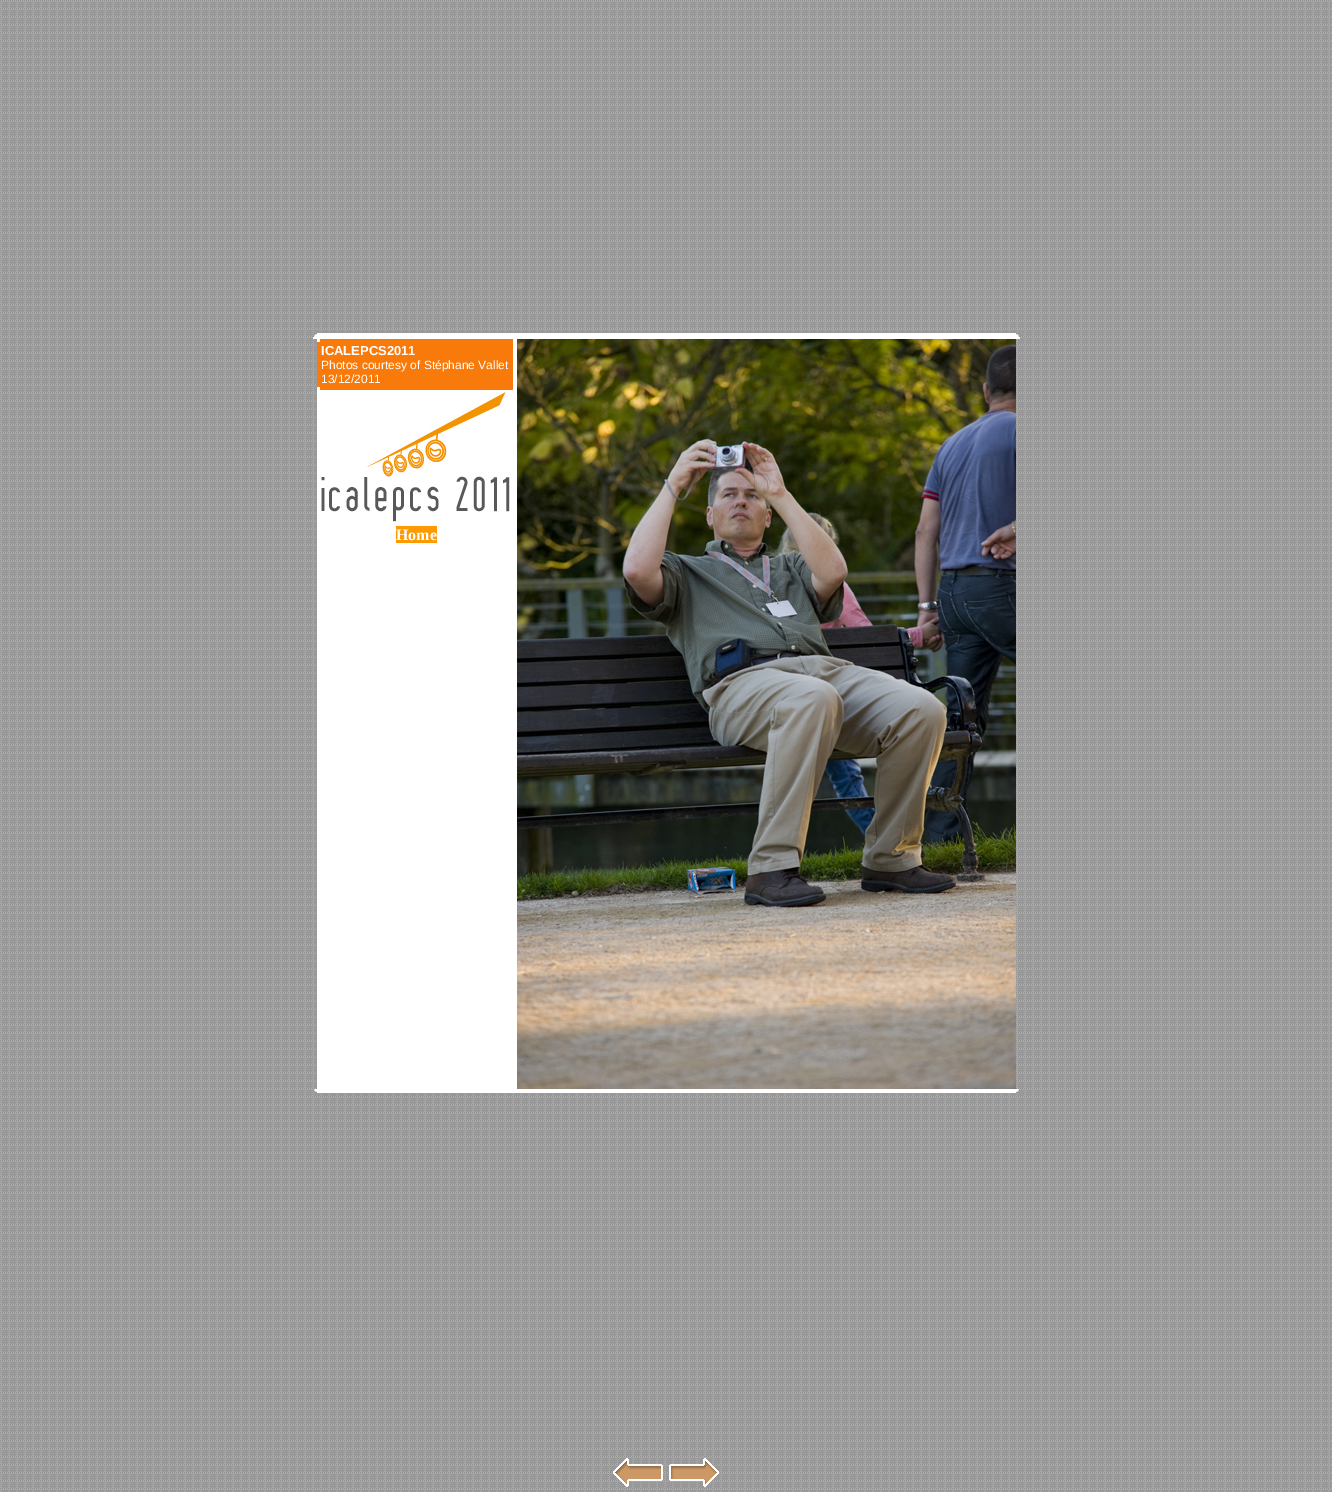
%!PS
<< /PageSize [1332 1492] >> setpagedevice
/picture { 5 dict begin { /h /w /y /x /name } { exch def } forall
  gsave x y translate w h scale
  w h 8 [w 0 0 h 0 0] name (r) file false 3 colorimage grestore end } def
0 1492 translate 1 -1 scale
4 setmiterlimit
1 setgray
0 0 1332 1492 rectfill
(img1.rgb) 0 0 1332 1492 picture
(img2.rgb) 313 333 4 4 picture
317 333 699 4 rectfill
(img3.rgb) 1016 333 4 4 picture
313 337 707 2 rectfill
317 339 200 750 rectfill
0.973 0.478 0.039 setrgbcolor
317 339 196 4 rectfill
1 setgray
317 339 3 3 rectfill
0.973 0.478 0.039 setrgbcolor
317 343 196 43 rectfill
/LiberationSans-Bold [13 0 0 -13 0 0] selectfont
1 setgray
321 355 moveto (ICALEPCS2011) show
/LiberationSans-Regular [12 0 0 -12 0 0] selectfont
321 369 moveto (Photos courtesy of Stéphane Vallet) show
321 383 moveto (13/12/2011) show
0.973 0.478 0.039 setrgbcolor
317 386 196 4 rectfill
1 setgray
317 387 3 3 rectfill
(img4.rgb) 321 391 189 131 picture
1 0.6 0 setrgbcolor
396 526 41 17 rectfill
/LiberationSerif-Bold [16 0 0 -16 0 0] selectfont
1 setgray
396 540 moveto (Home) show
(img5.rgb) 517 339 499 750 picture
(img6.rgb) 313 1089 4 4 picture
317 1089 699 4 rectfill
(img7.rgb) 1016 1089 4 4 picture
(img8.rgb) 613 1458 50 29 picture
(img9.rgb) 669 1458 50 29 picture
showpage
